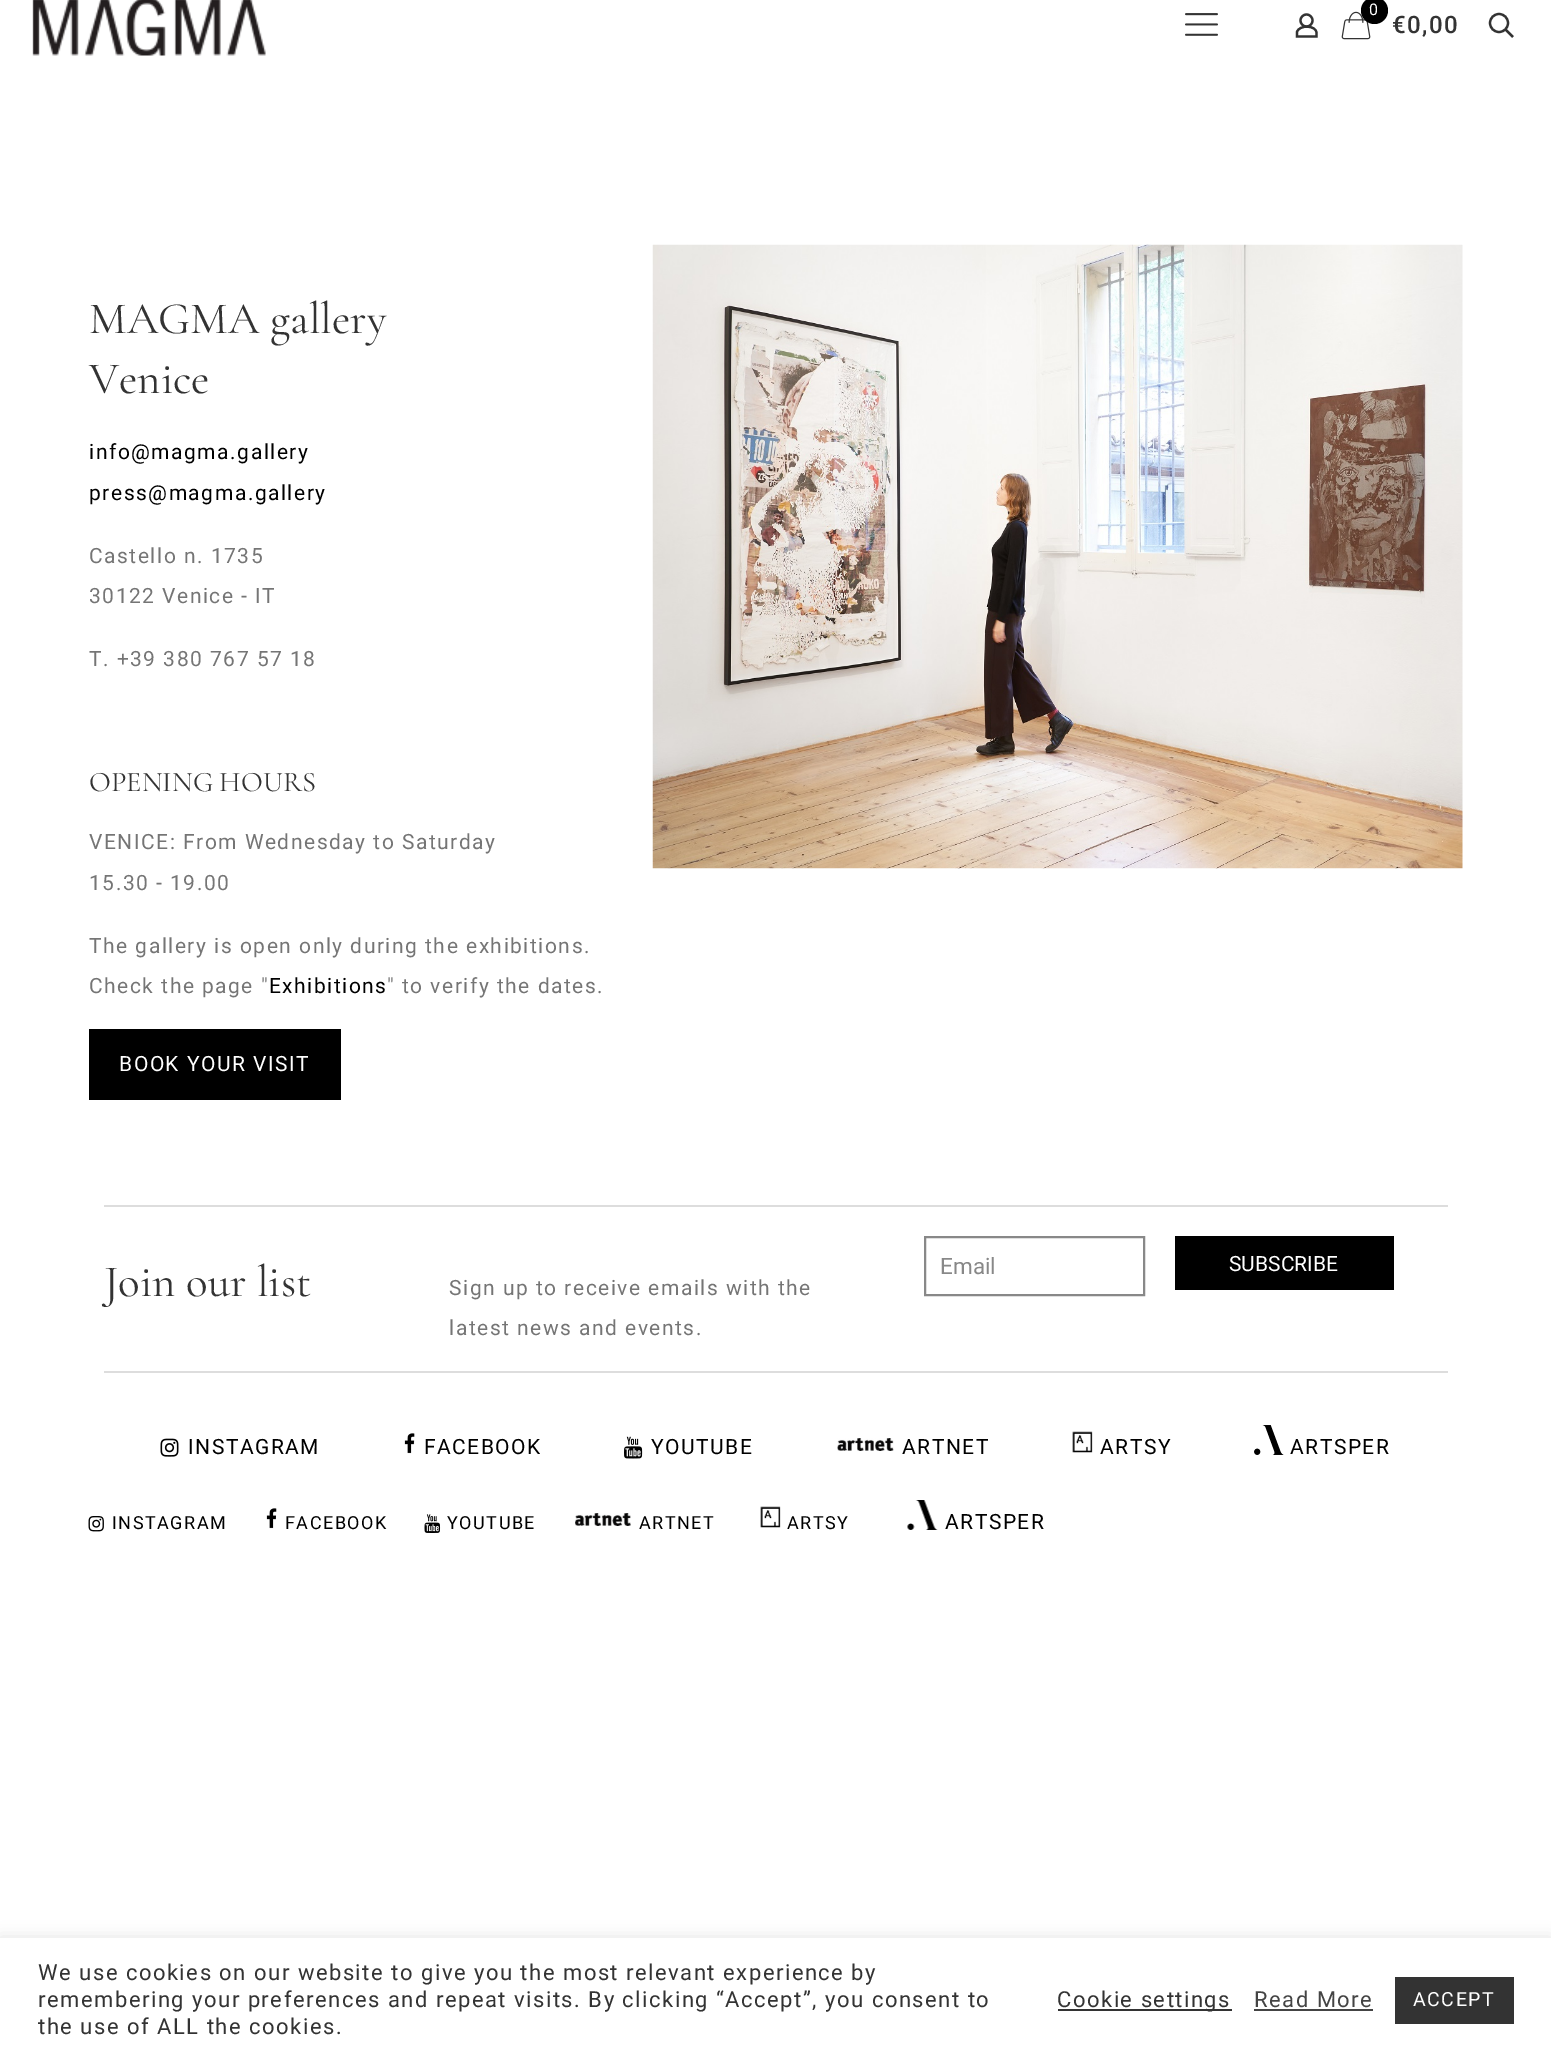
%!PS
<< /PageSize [1551 2061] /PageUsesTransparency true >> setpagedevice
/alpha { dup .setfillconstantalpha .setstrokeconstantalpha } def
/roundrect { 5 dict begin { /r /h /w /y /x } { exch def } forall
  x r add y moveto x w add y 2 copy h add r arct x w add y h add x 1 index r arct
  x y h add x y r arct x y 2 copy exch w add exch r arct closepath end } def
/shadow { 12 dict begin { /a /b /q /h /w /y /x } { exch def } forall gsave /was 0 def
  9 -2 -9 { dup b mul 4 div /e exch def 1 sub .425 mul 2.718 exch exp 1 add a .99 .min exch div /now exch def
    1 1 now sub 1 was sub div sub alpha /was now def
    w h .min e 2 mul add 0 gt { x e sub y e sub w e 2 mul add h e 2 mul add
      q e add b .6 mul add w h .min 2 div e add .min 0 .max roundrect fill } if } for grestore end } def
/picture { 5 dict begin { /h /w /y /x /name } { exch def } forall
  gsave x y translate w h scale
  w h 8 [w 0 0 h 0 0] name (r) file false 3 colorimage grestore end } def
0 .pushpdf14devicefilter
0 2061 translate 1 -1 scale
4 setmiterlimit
1 setgray
0 0 1551 2061 rectfill
(img1.rgb) 32 0 234 56 picture
(img2.rgb) 1185 13 33 23 picture
0.2 setgray
2.2 setlinewidth
newpath 1306.5 20.5 6 0 360 arc closepath stroke
newpath 1316.5 33 moveto 1316.5 36.5 lineto 1297 36.5 lineto 1297 32 lineto 1299 24.5 1316.5 25 1316.5 33 curveto closepath stroke
(img3.rgb) 1341 11 30 29 picture
0 setgray
newpath 1374.5 10.5 13.5 0 360 arc closepath fill
/Roboto-Regular [16 0 0 -16 0 0] selectfont
1 setgray
1369 15 moveto 1.5 0 (0) ashow
/Roboto-Medium [24 0 0 -24 0 0] selectfont
0.2 setgray
1392 33 moveto 1.5 0 (€0,00) ashow
newpath 1499 23 9 0 360 arc closepath stroke
newpath 1505.5 29.5 moveto 1513 37 lineto stroke
/CormorantGaramond-Regular [45 0 0 -45 0 0] selectfont
89 333 moveto (MAGMA gallery) show
89 393 moveto (Venice) show
/Roboto-Regular [21 0 0 -21 0 0] selectfont
0 setgray
89 459 moveto 1.5 0 (info@magma.gallery) ashow
89 500 moveto 1.5 0 (press@magma.gallery) ashow
0.459 setgray
89 563 moveto 1.5 0 (Castello n. 1735) ashow
89 603 moveto 1.5 0 (30122 Venice - IT) ashow
89 666 moveto 1.5 0 (T. +39 380 767 57 18) ashow
/CormorantGaramond-Regular [28.5 0 0 -28.5 0 0] selectfont
0.2 setgray
89 791 moveto (OPENING HOURS) show
/Roboto-Regular [21 0 0 -21 0 0] selectfont
0.459 setgray
89 849 moveto 1.5 0 (VENICE: From Wednesday to Saturday) ashow
89 890 moveto 1.5 0 (15.30 - 19.00) ashow
89 953 moveto 1.5 0 (The gallery is open only during the exhibitions.) ashow
89 993 moveto 1.5 0 (Check the page ") ashow
0 setgray
269 993 moveto 1.5 0 (Exhibitions) ashow
0.459 setgray
387 993 moveto 1.5 0 (" to verify the dates.) ashow
0 setgray
89 1029 252 71 rectfill
1 setgray
119 1071 moveto 1.5 0 (BOOK YOUR VISIT) ashow
(img4.rgb) 652 244 811 625 picture
0.867 setgray
104 1205 1344 2 rectfill
/CormorantGaramond-Regular [45 0 0 -45 0 0] selectfont
0.2 setgray
104 1296 moveto (Join our list) show
/Roboto-Regular [21 0 0 -21 0 0] selectfont
0.459 setgray
449 1295 moveto 1.5 0 (Sign up to receive emails with the) ashow
449 1335 moveto 1.5 0 (latest news and events.) ashow
0.533 setgray
2 setlinewidth
925 1237 219 58 rectstroke
/Roboto-Regular [22.5 0 0 -22.5 0 0] selectfont
940 1274 moveto (Email) show
0 setgray
1175 1236 219 54 rectfill
/Roboto-Regular [21 0 0 -21 0 0] selectfont
1 setgray
1229 1271 moveto (SUBSCRIBE) show
0.867 setgray
104 1371 1344 2 rectfill
(img5.rgb) 160 1438 19 19 picture
0 setgray
188 1454 moveto 1.5 0 (INSTAGRAM) ashow
(img6.rgb) 404 1433 11 21 picture
424 1454 moveto 1.5 0 (FACEBOOK) ashow
(img7.rgb) 624 1436 19 23 picture
651 1454 moveto 1.5 0 (YOUTUBE) ashow
(img8.rgb) 837 1438 57 13 picture
902 1454 moveto 1.5 0 (ARTNET) ashow
(img9.rgb) 1072 1431 21 22 picture
1100 1454 moveto 1.5 0 (ARTSY) ashow
(img10.rgb) 1254 1425 30 30 picture
1290 1454 moveto 1.5 0 (ARTSPER) ashow
(img11.rgb) 88 1516 16 16 picture
/Roboto-Regular [18 0 0 -18 0 0] selectfont
112 1529 moveto 1.5 0 (INSTAGRAM) ashow
(img12.rgb) 266 1508 11 21 picture
285 1529 moveto 1.5 0 (FACEBOOK) ashow
(img13.rgb) 424 1514 17 19 picture
447 1529 moveto 1.5 0 (YOUTUBE) ashow
(img14.rgb) 575 1513 56 13 picture
639 1529 moveto 1.5 0 (ARTNET) ashow
(img9.rgb) 760 1506 21 22 picture
787 1529 moveto 1.5 0 (ARTSY) ashow
(img15.rgb) 907 1500 31 30 picture
/Roboto-Regular [21 0 0 -21 0 0] selectfont
945 1529 moveto 1.5 0 (ARTSPER) ashow
0.675 0.671 0.671 setrgbcolor
0 1937 1551 123 0 7.5 0.3 shadow
1 setgray
0 1938 1551 123 rectfill
/Roboto-Regular [22 0 0 -22 0 0] selectfont
0.2 setgray
38 1980 moveto 1.5 0 (We use cookies on our website to give you the most relevant experience by) ashow
38 2007 moveto 1.5 0 (remembering your preferences and repeat visits. By clicking “Accept”, you consent to) ashow
38 2034 moveto 1.5 0 (the use of ALL the cookies.) ashow
1058 2009 174 2 rectfill
1057 2007 moveto 1.5 0 (Cookie settings) ashow
0.267 setgray
1254 2007 moveto 1.5 0 (Read More) ashow
1254 2009 119 2 rectfill
0.2 setgray
1395 1977 119 47 rectfill
/Roboto-Regular [19.5 0 0 -19.5 0 0] selectfont
1 setgray
1413 2006 moveto 1.5 0 (ACCEPT) ashow
.poppdf14devicefilter showpage
